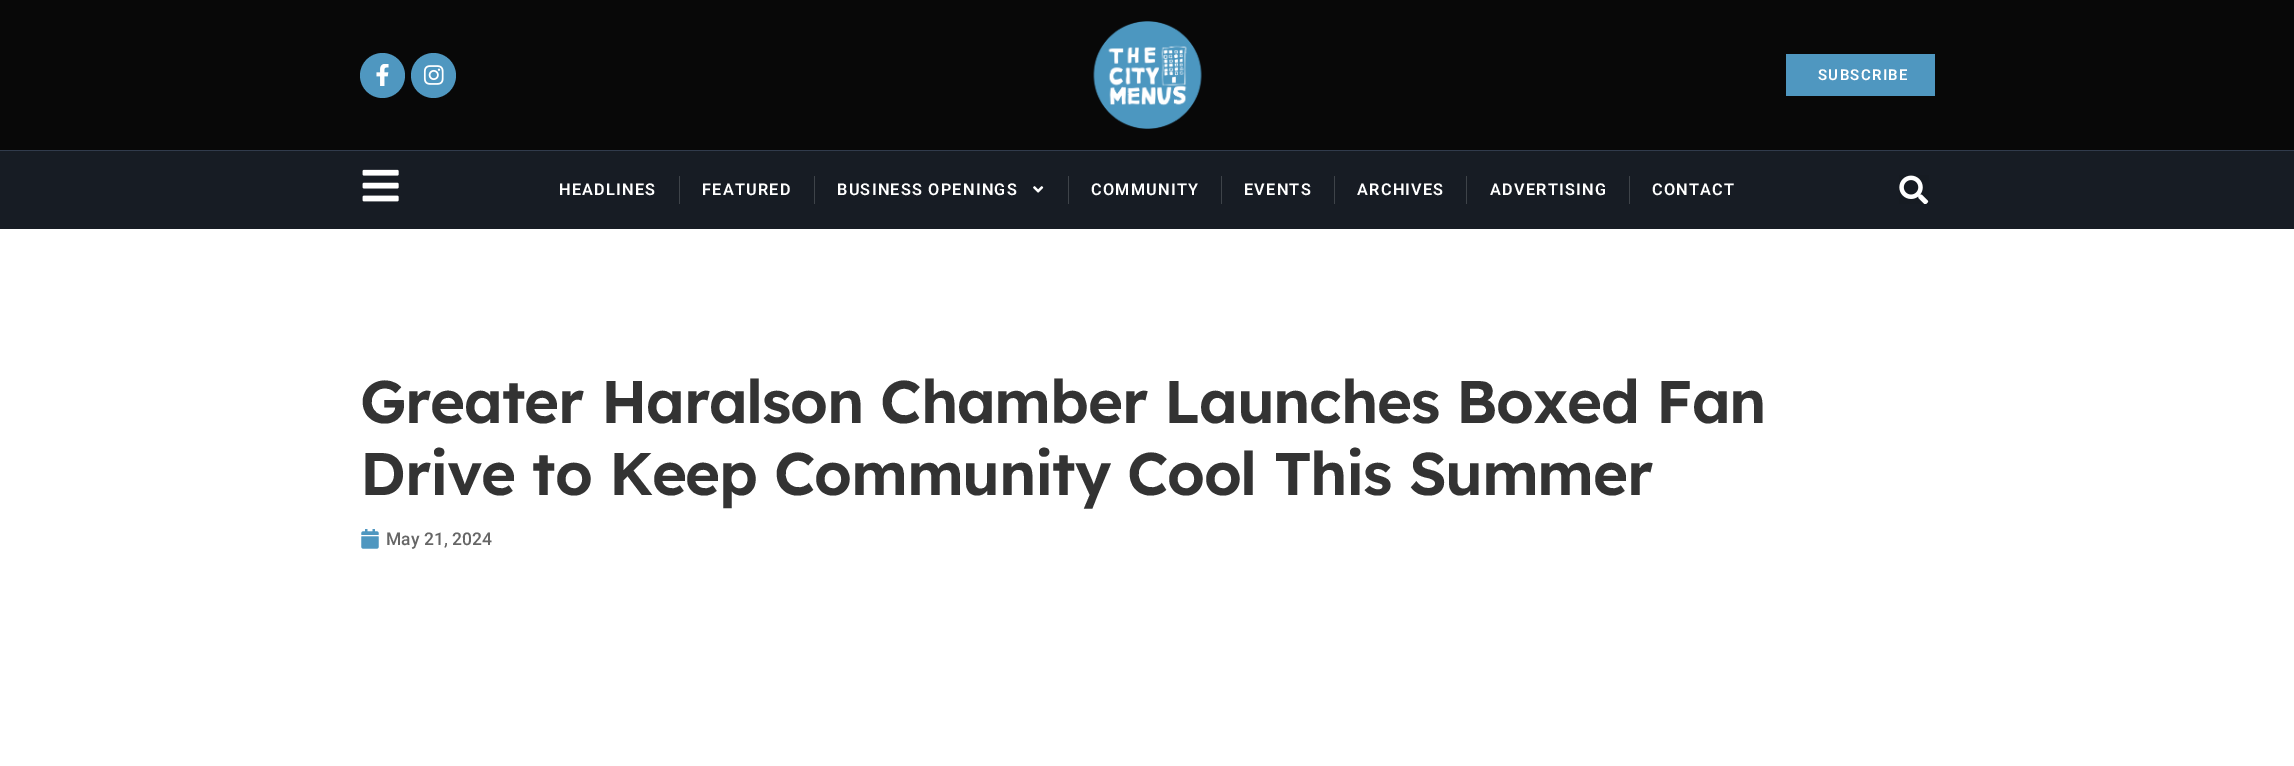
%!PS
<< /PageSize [2294 766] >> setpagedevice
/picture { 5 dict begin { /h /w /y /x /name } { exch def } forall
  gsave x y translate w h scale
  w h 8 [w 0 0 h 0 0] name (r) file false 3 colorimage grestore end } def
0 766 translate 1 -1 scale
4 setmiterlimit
1 setgray
0 0 2294 766 rectfill
0.031 setgray
0 0 2294 150 rectfill
0.31 0.592 0.753 setrgbcolor
newpath 382.5 75.5 22.5 0 360 arc closepath fill
(img1.rgb) 376 64 13 22 picture
newpath 433.5 75.5 22.5 0 360 arc closepath fill
(img2.rgb) 423 65 21 20 picture
(img3.rgb) 1093 21 109 108 picture
1786 54 149 42 rectfill
/Roboto-SemiBold [15 0 0 -15 0 0] selectfont
1 setgray
1818 80 moveto 1.25 0 (SUBSCRIBE) ashow
0.09 0.11 0.141 setrgbcolor
0 151 2294 78 rectfill
0.192 0.231 0.298 setrgbcolor
0 150 2294 1 rectfill
(img4.rgb) 362 169 37 33 picture
/Roboto-SemiBold [16.25 0 0 -16.25 0 0] selectfont
1 setgray
559 195 moveto 1.25 0 (HEADLINES) ashow
0.243 0.263 0.286 setrgbcolor
679 176 1 28 rectfill
1 setgray
702 195 moveto 1.25 0 (FEATURED) ashow
0.243 0.263 0.286 setrgbcolor
814 176 1 28 rectfill
1 setgray
837 195 moveto 1.25 0 (BUSINESS OPENINGS) ashow
(img5.rgb) 1033 186 11 7 picture
0.243 0.263 0.286 setrgbcolor
1068 176 1 28 rectfill
1 setgray
1091 195 moveto 1.25 0 (COMMUNITY) ashow
0.243 0.263 0.286 setrgbcolor
1221 176 1 28 rectfill
1 setgray
1244 195 moveto 1.25 0 (EVENTS) ashow
0.243 0.263 0.286 setrgbcolor
1334 176 1 28 rectfill
1 setgray
1357 195 moveto 1.25 0 (ARCHIVES) ashow
0.243 0.263 0.286 setrgbcolor
1466 176 1 28 rectfill
1 setgray
1490 195 moveto 1.25 0 (ADVERTISING) ashow
0.243 0.263 0.286 setrgbcolor
1629 176 1 28 rectfill
1 setgray
1652 195 moveto 1.25 0 (CONTACT) ashow
(img6.rgb) 1899 175 30 29 picture
/Lexend-SemiBold [60 0 0 -60 0 0] selectfont
0.2 setgray
360 423 moveto -1.25 0 (Greater Haralson Chamber Launches Boxed Fan) ashow
360 495 moveto -1.25 0 (Drive to Keep Community Cool This Summer) ashow
(img7.rgb) 361 529 18 20 picture
/Roboto-Medium [17.5 0 0 -17.5 0 0] selectfont
0.4 setgray
386 545 moveto (May 21, 2024) show
showpage
